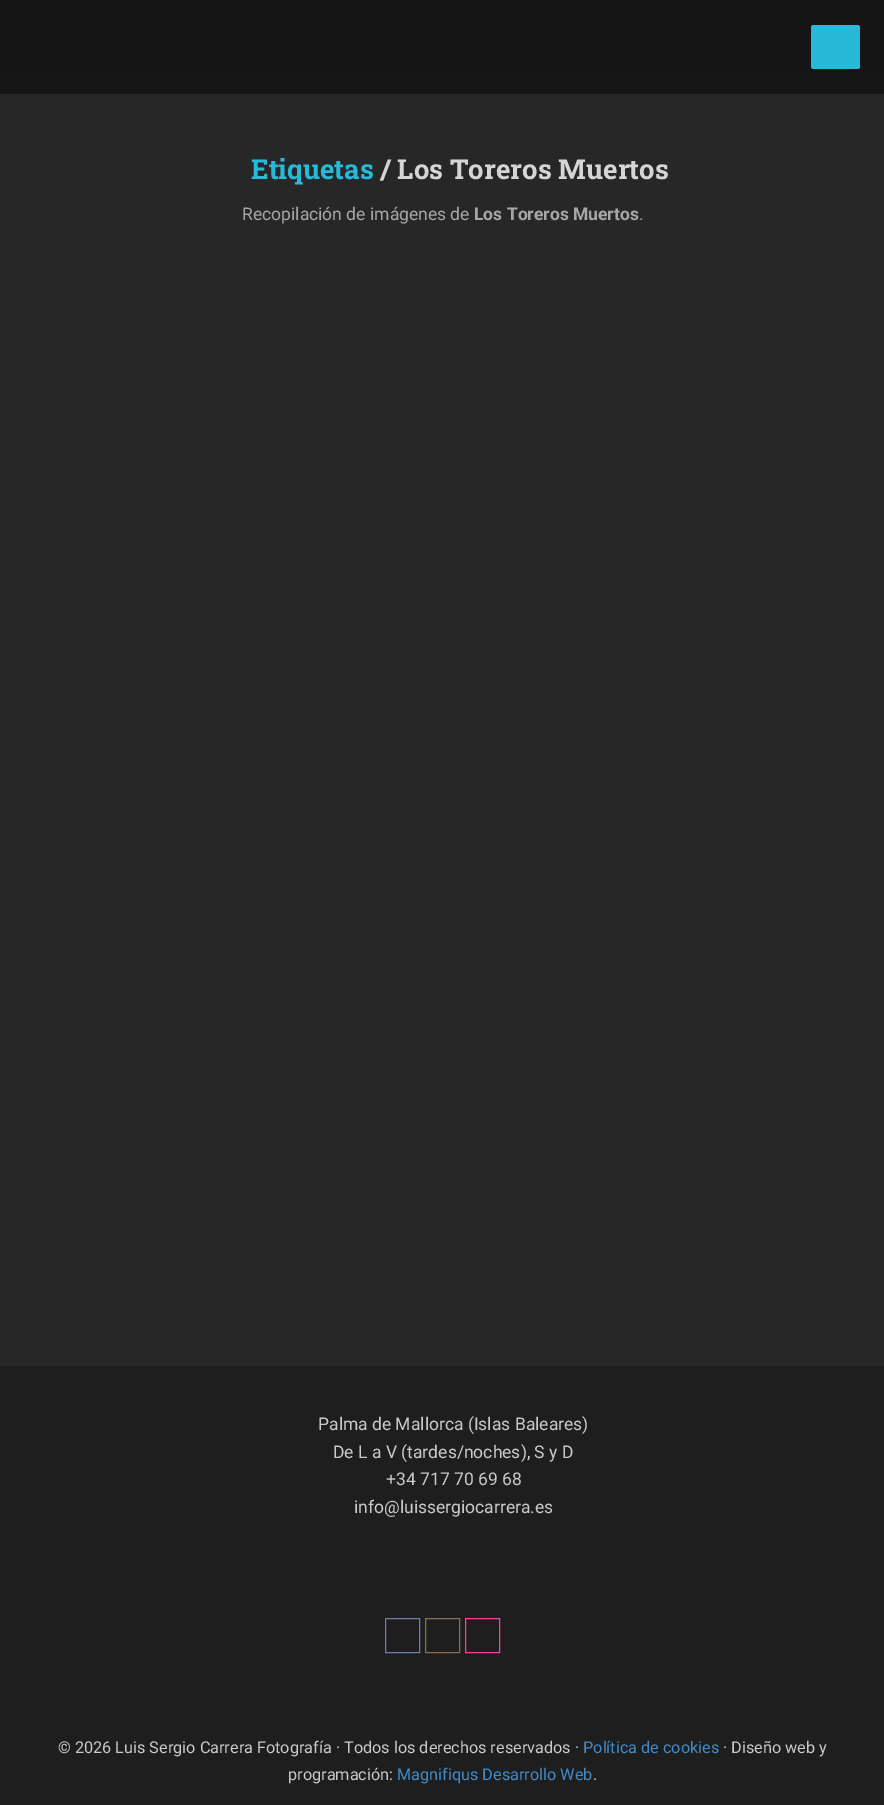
%!PS
<< /PageSize [884 1805] >> setpagedevice
/roundrect { 5 dict begin { /r /h /w /y /x } { exch def } forall
  x r add y moveto x w add y 2 copy h add r arct x w add y h add x 1 index r arct
  x y h add x y r arct x y 2 copy exch w add exch r arct closepath end } def
0 1805 translate 1 -1 scale
4 setmiterlimit
0.118 setgray
0 0 884 1805 rectfill
0.082 setgray
0 0 884 75 rectfill
0.157 0.722 0.847 setrgbcolor
811 25 49 44 2.5 roundrect fill
0.153 setgray
0 94 884 1272 rectfill
0.086 setgray
0 75 884 19 rectfill
/RobotoSlab-Bold [27.5 0 0 -27.5 0 0] selectfont
0.157 0.722 0.847 setrgbcolor
251 179 moveto (Etiquetas) show
0.835 setgray
380 179 moveto (/ Los Toreros Muertos) show
/Roboto-Regular [17.5 0 0 -17.5 0 0] selectfont
0.651 setgray
242 220 moveto (Recopilación de imágenes de) show
/Roboto-Bold [17.5 0 0 -17.5 0 0] selectfont
474 220 moveto (Los Toreros Muertos) show
/Roboto-Regular [17.5 0 0 -17.5 0 0] selectfont
639 220 moveto (.) show
0.792 setgray
318 1430 moveto (Palma de Mallorca \(Islas Baleares\)) show
333 1458 moveto (De L a V \(tardes/noches\), S y D) show
386 1485 moveto (+34 717 70 69 68) show
354 1513 moveto (info@luissergiocarrera.es) show
0.404 0.498 0.71 setrgbcolor
385.5 1618.5 34 34 rectstroke
0.573 0.427 0.325 setrgbcolor
425.5 1618.5 34 34 rectstroke
1 0.231 0.643 setrgbcolor
465.5 1618.5 34 34 rectstroke
/Roboto-Regular [16.25 0 0 -16.25 0 0] selectfont
0.792 setgray
58 1753 moveto (© 2026 Luis Sergio Carrera Fotografía · Todos los derechos reservados ·) show
0.259 0.545 0.792 setrgbcolor
583 1753 moveto (Política de cookies) show
0.792 setgray
723 1753 moveto (· Diseño web y) show
288 1780 moveto (programación:) show
0.259 0.545 0.792 setrgbcolor
397 1780 moveto (Magnifiqus Desarrollo Web) show
0.792 setgray
593 1780 moveto (.) show
showpage
